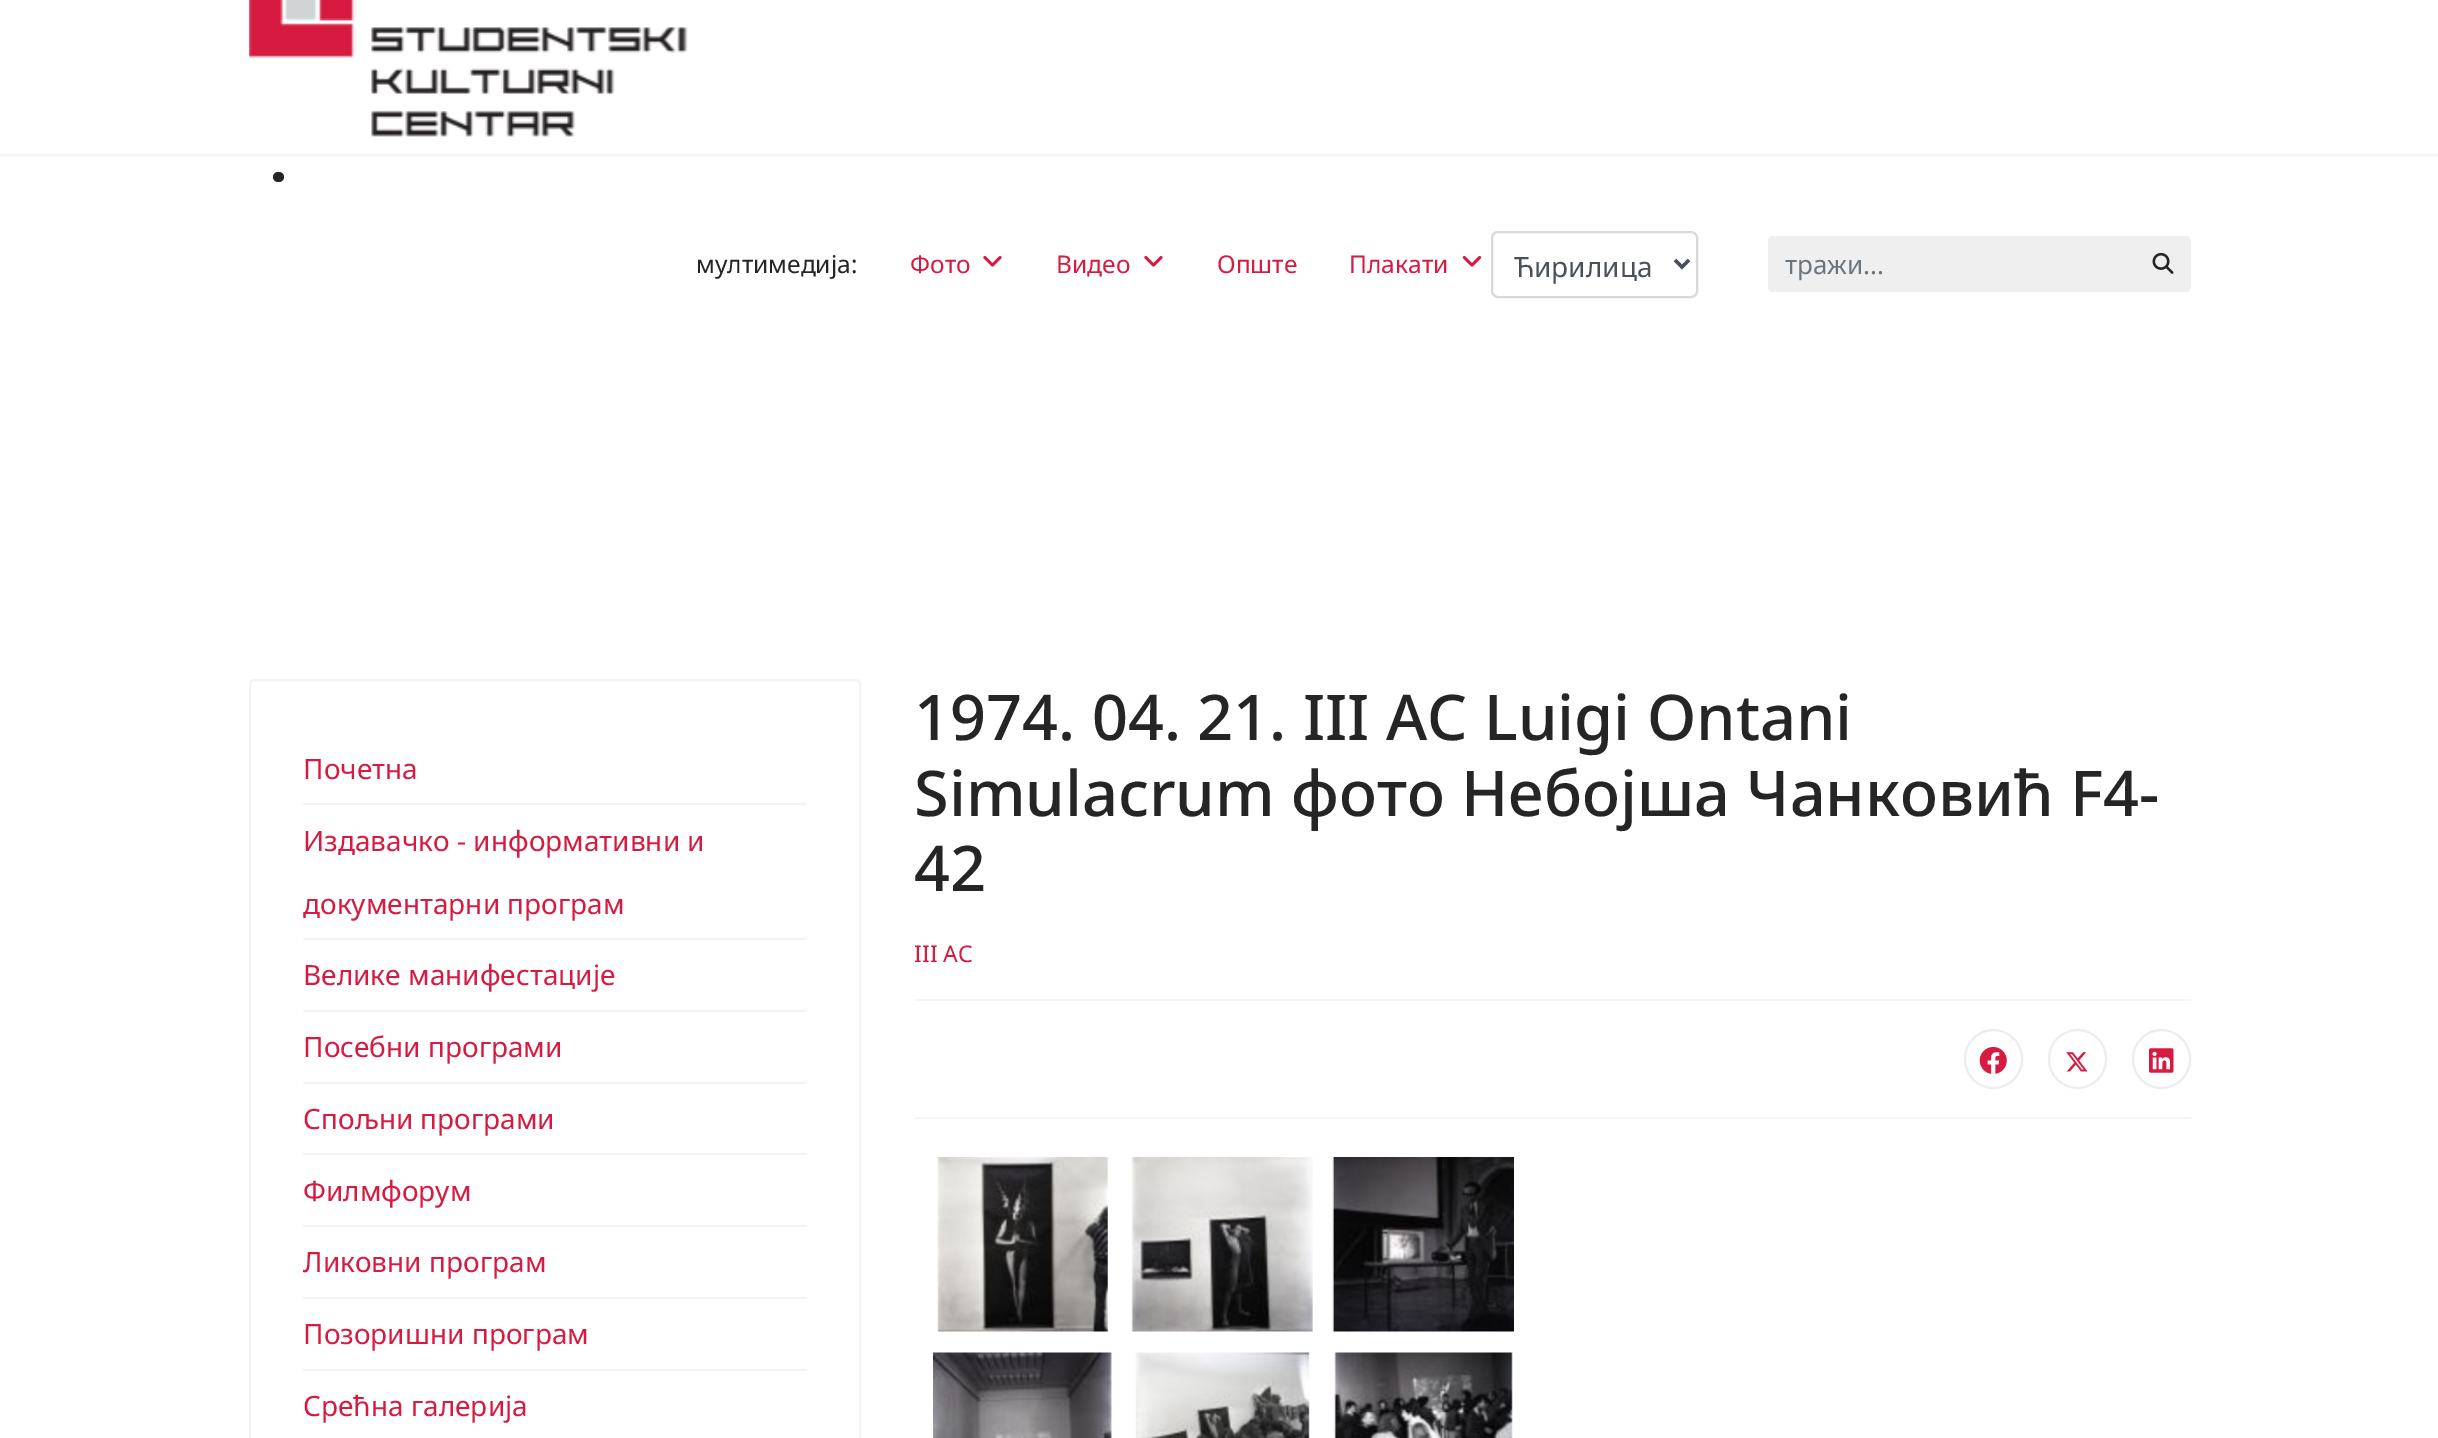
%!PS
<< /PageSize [2438 1438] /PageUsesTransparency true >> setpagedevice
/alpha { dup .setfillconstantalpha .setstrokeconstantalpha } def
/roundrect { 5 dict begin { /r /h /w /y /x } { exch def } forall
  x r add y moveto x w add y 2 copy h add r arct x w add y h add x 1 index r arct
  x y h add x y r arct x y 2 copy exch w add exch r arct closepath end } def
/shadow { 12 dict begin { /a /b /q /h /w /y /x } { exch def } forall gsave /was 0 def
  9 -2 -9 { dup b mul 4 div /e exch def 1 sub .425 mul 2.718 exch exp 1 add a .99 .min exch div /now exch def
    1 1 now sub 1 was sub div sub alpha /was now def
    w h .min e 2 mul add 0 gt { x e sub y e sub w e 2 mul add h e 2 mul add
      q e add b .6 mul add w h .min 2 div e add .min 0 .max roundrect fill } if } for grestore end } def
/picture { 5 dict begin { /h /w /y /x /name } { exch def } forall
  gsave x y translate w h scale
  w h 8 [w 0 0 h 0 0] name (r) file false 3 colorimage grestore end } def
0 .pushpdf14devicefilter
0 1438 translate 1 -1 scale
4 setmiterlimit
1 setgray
0 0 2438 1438 rectfill
0.145 setgray
273 172 11 10 5 roundrect fill
gsave
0 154 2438 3 rectclip
0 setgray
0 -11 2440 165 0 3.5 0.1 shadow
grestore
(img1.rgb) 249 0 439 137 picture
/NotoSans-Regular [24.5 0 0 -24.5 0 0] selectfont
696 273 moveto (мултимедија:) show
0.843 0.102 0.251 setrgbcolor
910 273 moveto (Фото) show
(img2.rgb) 983 256 19 11 picture
1056 273 moveto (Видео) show
(img2.rgb) 1144 256 19 11 picture
1217 273 moveto (Опште) show
1349 273 moveto (Плакати) show
(img3.rgb) 1462 256 20 11 picture
0.851 setgray
2 setlinewidth
1492 232 205 65 6 roundrect stroke
0.286 0.314 0.341 setrgbcolor
3.5 setlinewidth
newpath 1675 260 moveto 1682 267 lineto 1689 260 lineto stroke
/NotoSans-Regular [28 0 0 -28 0 0] selectfont
1514 277 moveto (Ћирилица) show
0.937 0.937 0.941 setrgbcolor
1768 236 423 56 5 roundrect fill
/NotoSans-Regular [26 0 0 -26 0 0] selectfont
0.424 0.459 0.49 setrgbcolor
1785 274 moveto (тражи...) show
(img4.rgb) 2152 252 22 22 picture
0.953 setgray
2 setlinewidth
250 680 610 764 4 roundrect stroke
303 803 504 2 rectfill
/NotoSans-Regular [28 0 0 -28 0 0] selectfont
0.843 0.102 0.251 setrgbcolor
303 779 moveto (Почетна) show
0.953 setgray
303 938 504 2 rectfill
0.843 0.102 0.251 setrgbcolor
303 851 moveto (Издавачко - информативни и) show
303 914 moveto (документарни програм) show
0.953 setgray
303 1010 504 2 rectfill
0.843 0.102 0.251 setrgbcolor
303 985 moveto (Велике манифестације) show
0.953 setgray
303 1082 504 2 rectfill
0.843 0.102 0.251 setrgbcolor
303 1057 moveto (Посебни програми) show
0.953 setgray
303 1153 504 2 rectfill
0.843 0.102 0.251 setrgbcolor
303 1129 moveto (Спољни програми) show
0.953 setgray
303 1225 504 2 rectfill
0.843 0.102 0.251 setrgbcolor
303 1201 moveto (Филмфорум) show
0.953 setgray
303 1297 504 2 rectfill
0.843 0.102 0.251 setrgbcolor
303 1272 moveto (Ликовни програм) show
0.953 setgray
303 1369 504 2 rectfill
0.843 0.102 0.251 setrgbcolor
303 1344 moveto (Позоришни програм) show
303 1416 moveto (Срећна галерија) show
/NotoSans-Medium [63 0 0 -63 0 0] selectfont
0.145 setgray
914 740 moveto (1974. 04. 21. III АС Luigi Ontani) show
914 816 moveto (Simulacrum фото Небојша Чанковић F4-) show
914 891 moveto (42) show
/NotoSans-Regular [23 0 0 -23 0 0] selectfont
0.843 0.102 0.251 setrgbcolor
914 962 moveto (III АС) show
0.961 setgray
914 999 1277 2 rectfill
914 1117 1277 2 rectfill
0.929 setgray
1965 1030 57 58 28.5 roundrect stroke
(img5.rgb) 1979 1046 28 28 picture
2049 1030 57 58 28.5 roundrect stroke
(img6.rgb) 2066 1052 22 20 picture
2133 1030 57 58 28.5 roundrect stroke
(img7.rgb) 2149 1048 25 25 picture
(img8.rgb) 937 1157 171 175 picture
(img9.rgb) 1131 1157 182 175 picture
(img10.rgb) 1332 1157 182 175 picture
(img11.rgb) 933 1352 179 86 picture
(img12.rgb) 1135 1352 175 86 picture
(img13.rgb) 1334 1352 179 86 picture
.poppdf14devicefilter showpage
